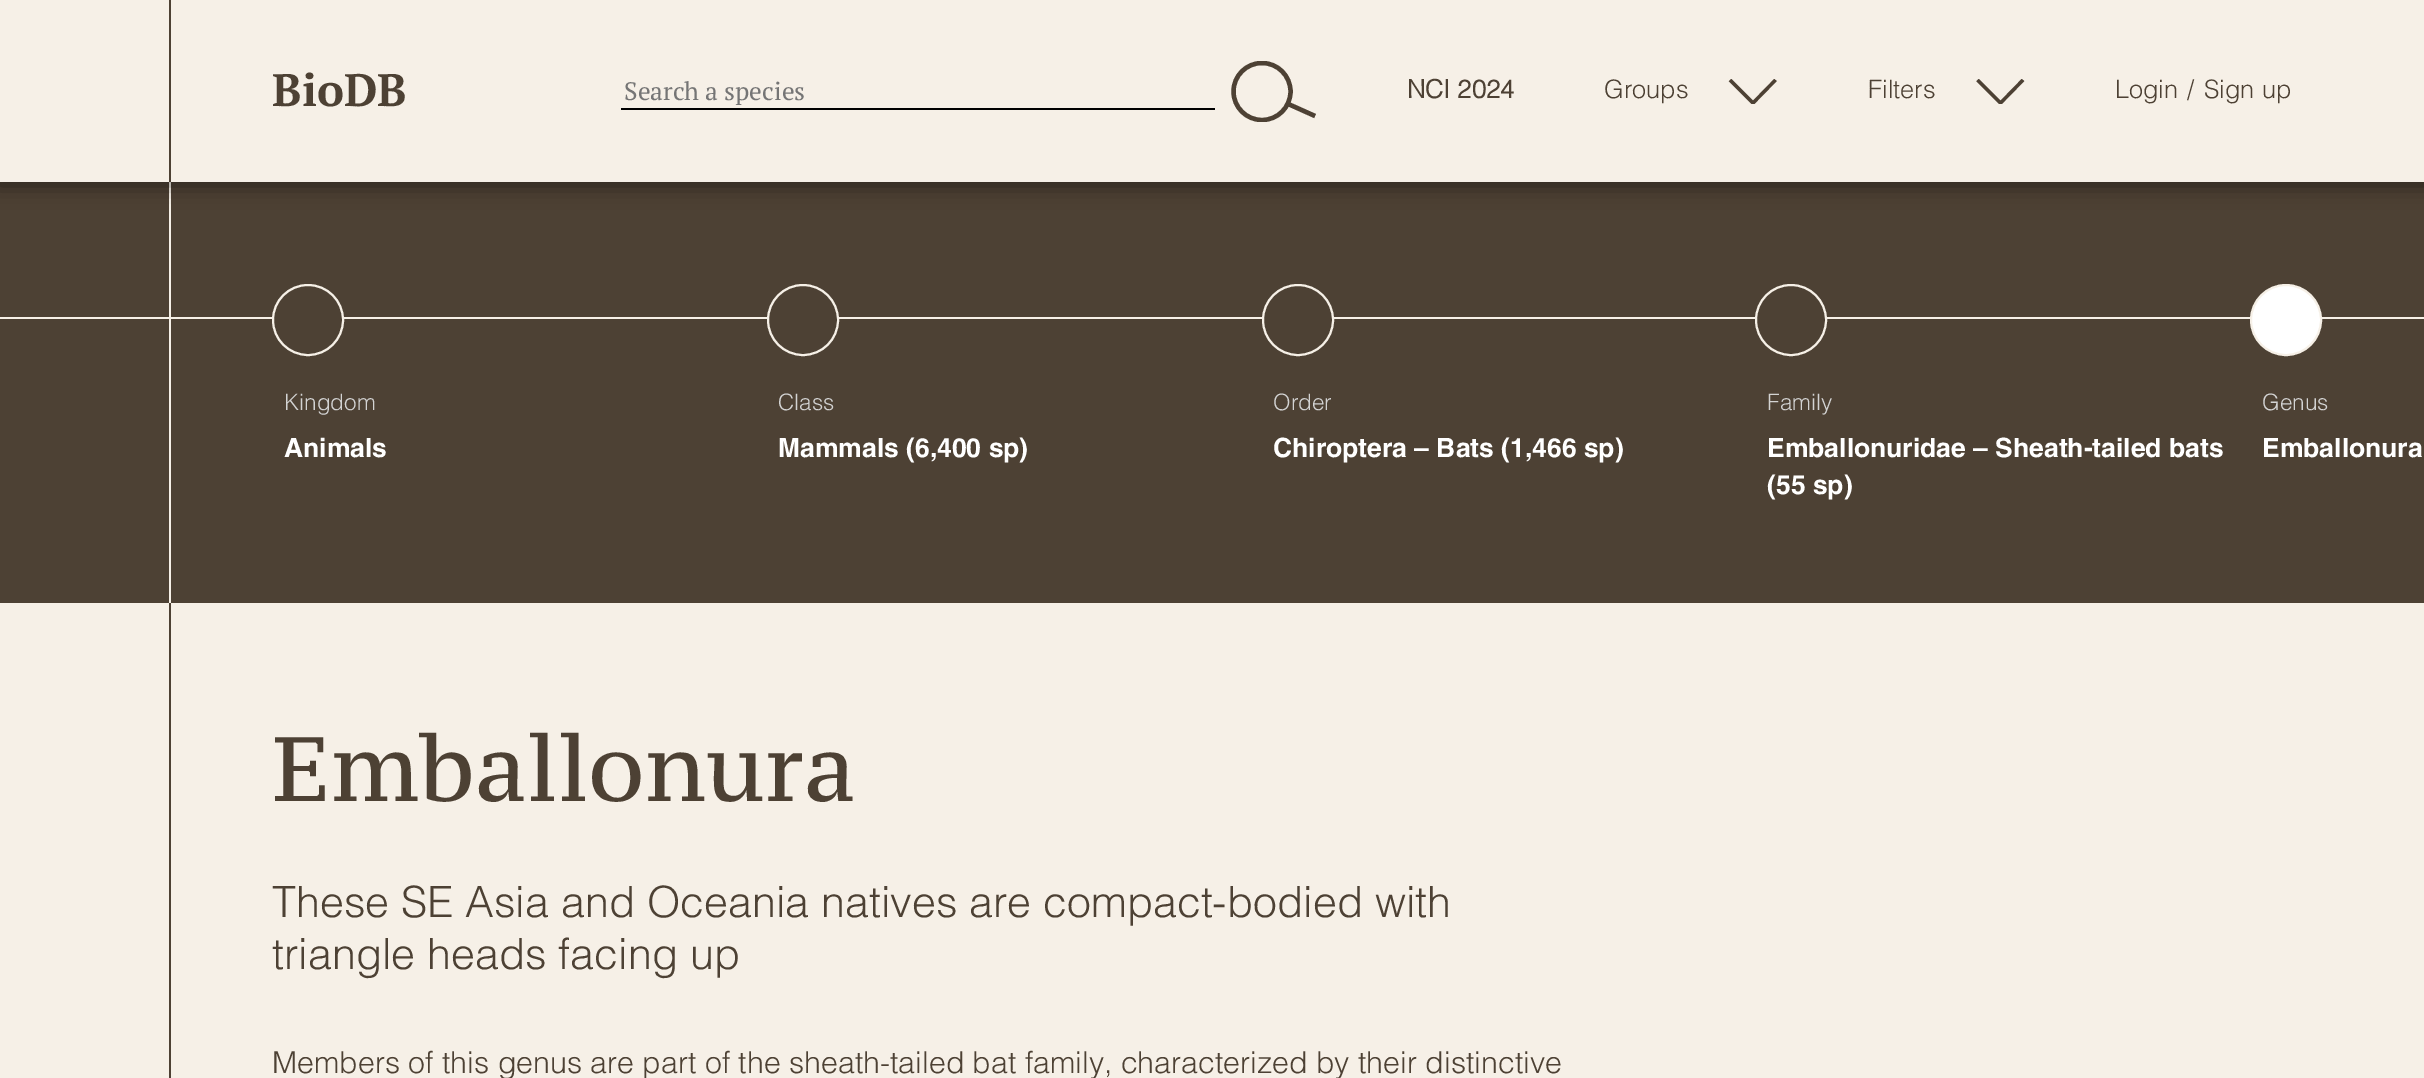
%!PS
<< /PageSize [2424 1078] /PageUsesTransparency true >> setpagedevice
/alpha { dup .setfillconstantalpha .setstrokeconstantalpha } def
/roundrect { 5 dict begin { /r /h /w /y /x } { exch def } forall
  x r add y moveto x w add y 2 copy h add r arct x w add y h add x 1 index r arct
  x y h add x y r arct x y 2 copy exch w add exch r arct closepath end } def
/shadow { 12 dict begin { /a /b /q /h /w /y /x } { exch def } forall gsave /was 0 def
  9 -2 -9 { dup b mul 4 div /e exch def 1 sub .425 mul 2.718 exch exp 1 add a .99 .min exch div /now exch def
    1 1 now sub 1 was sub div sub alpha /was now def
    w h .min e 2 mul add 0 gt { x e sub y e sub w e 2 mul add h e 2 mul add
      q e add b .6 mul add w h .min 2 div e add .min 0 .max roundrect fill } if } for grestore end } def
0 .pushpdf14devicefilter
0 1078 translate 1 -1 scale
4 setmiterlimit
0.965 0.941 0.906 setrgbcolor
0 0 2424 1078 rectfill
0.302 0.255 0.204 setrgbcolor
169 603 2 475 rectfill
0 182 2424 421 rectfill
0.965 0.941 0.906 setrgbcolor
0 317 2424 2 rectfill
169 182 2 421 rectfill
0 setgray
-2 -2 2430 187 0 11 0.5 shadow
0.965 0.941 0.906 setrgbcolor
0 0 2424 182 rectfill
0.302 0.255 0.204 setrgbcolor
169 0 2 182 rectfill
/PTSerif-Bold [45.5 0 0 -45.5 0 0] selectfont
272 106 moveto (BioDB) show
0 setgray
621 108 594 2 rectfill
/PTSerif-Regular [25.25 0 0 -25.25 0 0] selectfont
0.459 setgray
624 100 moveto (Search a species) show
gsave
1231 61 85 61 rectclip
0.302 0.255 0.204 setrgbcolor
4.4 setlinewidth
newpath 1262 91.5 28.5 0 360 arc closepath stroke
grestore
0.302 0.255 0.204 setrgbcolor
4.4 setlinewidth
newpath 1286 103 moveto 1315 116 lineto stroke
/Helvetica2-Bold [25.25 0 0 -25.25 0 0] selectfont
1407 98 moveto (NCI 2024) show
/Helvetica-Light [25.25 0 0 -25.25 0 0] selectfont
1604 98 moveto (Groups) show
gsave
1728 79 50 25 rectclip
3.3 setlinewidth
newpath 1730 80 moveto 1753 103 lineto 1775.5 80 lineto stroke
grestore
1868 98 moveto (Filters) show
gsave
1976 79 49 25 rectclip
3.3 setlinewidth
newpath 1977.5 80 moveto 2000.5 103 lineto 2023 80 lineto stroke
grestore
2115 98 moveto (Login) show
2187 98 moveto (/) show
2204 98 moveto (Sign up) show
newpath 308 320 35 0 360 arc closepath gsave fill grestore
0.965 0.941 0.906 setrgbcolor
2 setlinewidth
stroke
/Helvetica-Light [22.5 0 0 -22.5 0 0] selectfont
0.827 setgray
284 410 moveto (Kingdom) show
/Helvetica-Bold [26.5 0 0 -26.5 0 0] selectfont
1 setgray
284 457 moveto (Animals) show
0.302 0.255 0.204 setrgbcolor
newpath 803 320 35 0 360 arc closepath gsave fill grestore
0.965 0.941 0.906 setrgbcolor
stroke
/Helvetica-Light [22.5 0 0 -22.5 0 0] selectfont
0.827 setgray
778 410 moveto (Class) show
/Helvetica-Bold [26.5 0 0 -26.5 0 0] selectfont
1 setgray
778 457 moveto (Mammals \(6,400 sp\)) show
0.302 0.255 0.204 setrgbcolor
newpath 1298 320 35 0 360 arc closepath gsave fill grestore
0.965 0.941 0.906 setrgbcolor
stroke
/Helvetica-Light [22.5 0 0 -22.5 0 0] selectfont
0.827 setgray
1273 410 moveto (Order) show
/Helvetica-Bold [26.5 0 0 -26.5 0 0] selectfont
1 setgray
1273 457 moveto (Chiroptera – Bats \(1,466 sp\)) show
0.302 0.255 0.204 setrgbcolor
newpath 1791 320 35 0 360 arc closepath gsave fill grestore
0.965 0.941 0.906 setrgbcolor
stroke
/Helvetica-Light [22.5 0 0 -22.5 0 0] selectfont
0.827 setgray
1767 410 moveto (Family) show
/Helvetica-Bold [26.5 0 0 -26.5 0 0] selectfont
1 setgray
1767 457 moveto (Emballonuridae – Sheath-tailed bats) show
1767 494 moveto (\(55 sp\)) show
newpath 2286 320 35 0 360 arc closepath gsave fill grestore
0.965 0.941 0.906 setrgbcolor
stroke
/Helvetica-Light [22.5 0 0 -22.5 0 0] selectfont
0.827 setgray
2262 410 moveto (Genus) show
/Helvetica-Bold [26.5 0 0 -26.5 0 0] selectfont
1 setgray
2262 457 moveto (Emballonura) show
/PTSerifCaption-Regular [91 0 0 -91 0 0] selectfont
0.302 0.255 0.204 setrgbcolor
272 801 moveto (Emballonura) show
/Helvetica-Light [42.95 0 0 -42.95 0 0] selectfont
272 917 moveto (These SE Asia and Oceania natives are compact-bodied with) show
272 969 moveto (triangle heads facing up) show
/Helvetica-Light [30.3 0 0 -30.3 0 0] selectfont
272 1073 moveto (Members of this genus are part of the sheath-tailed bat family, characterized by their distinctive) show
.poppdf14devicefilter showpage
